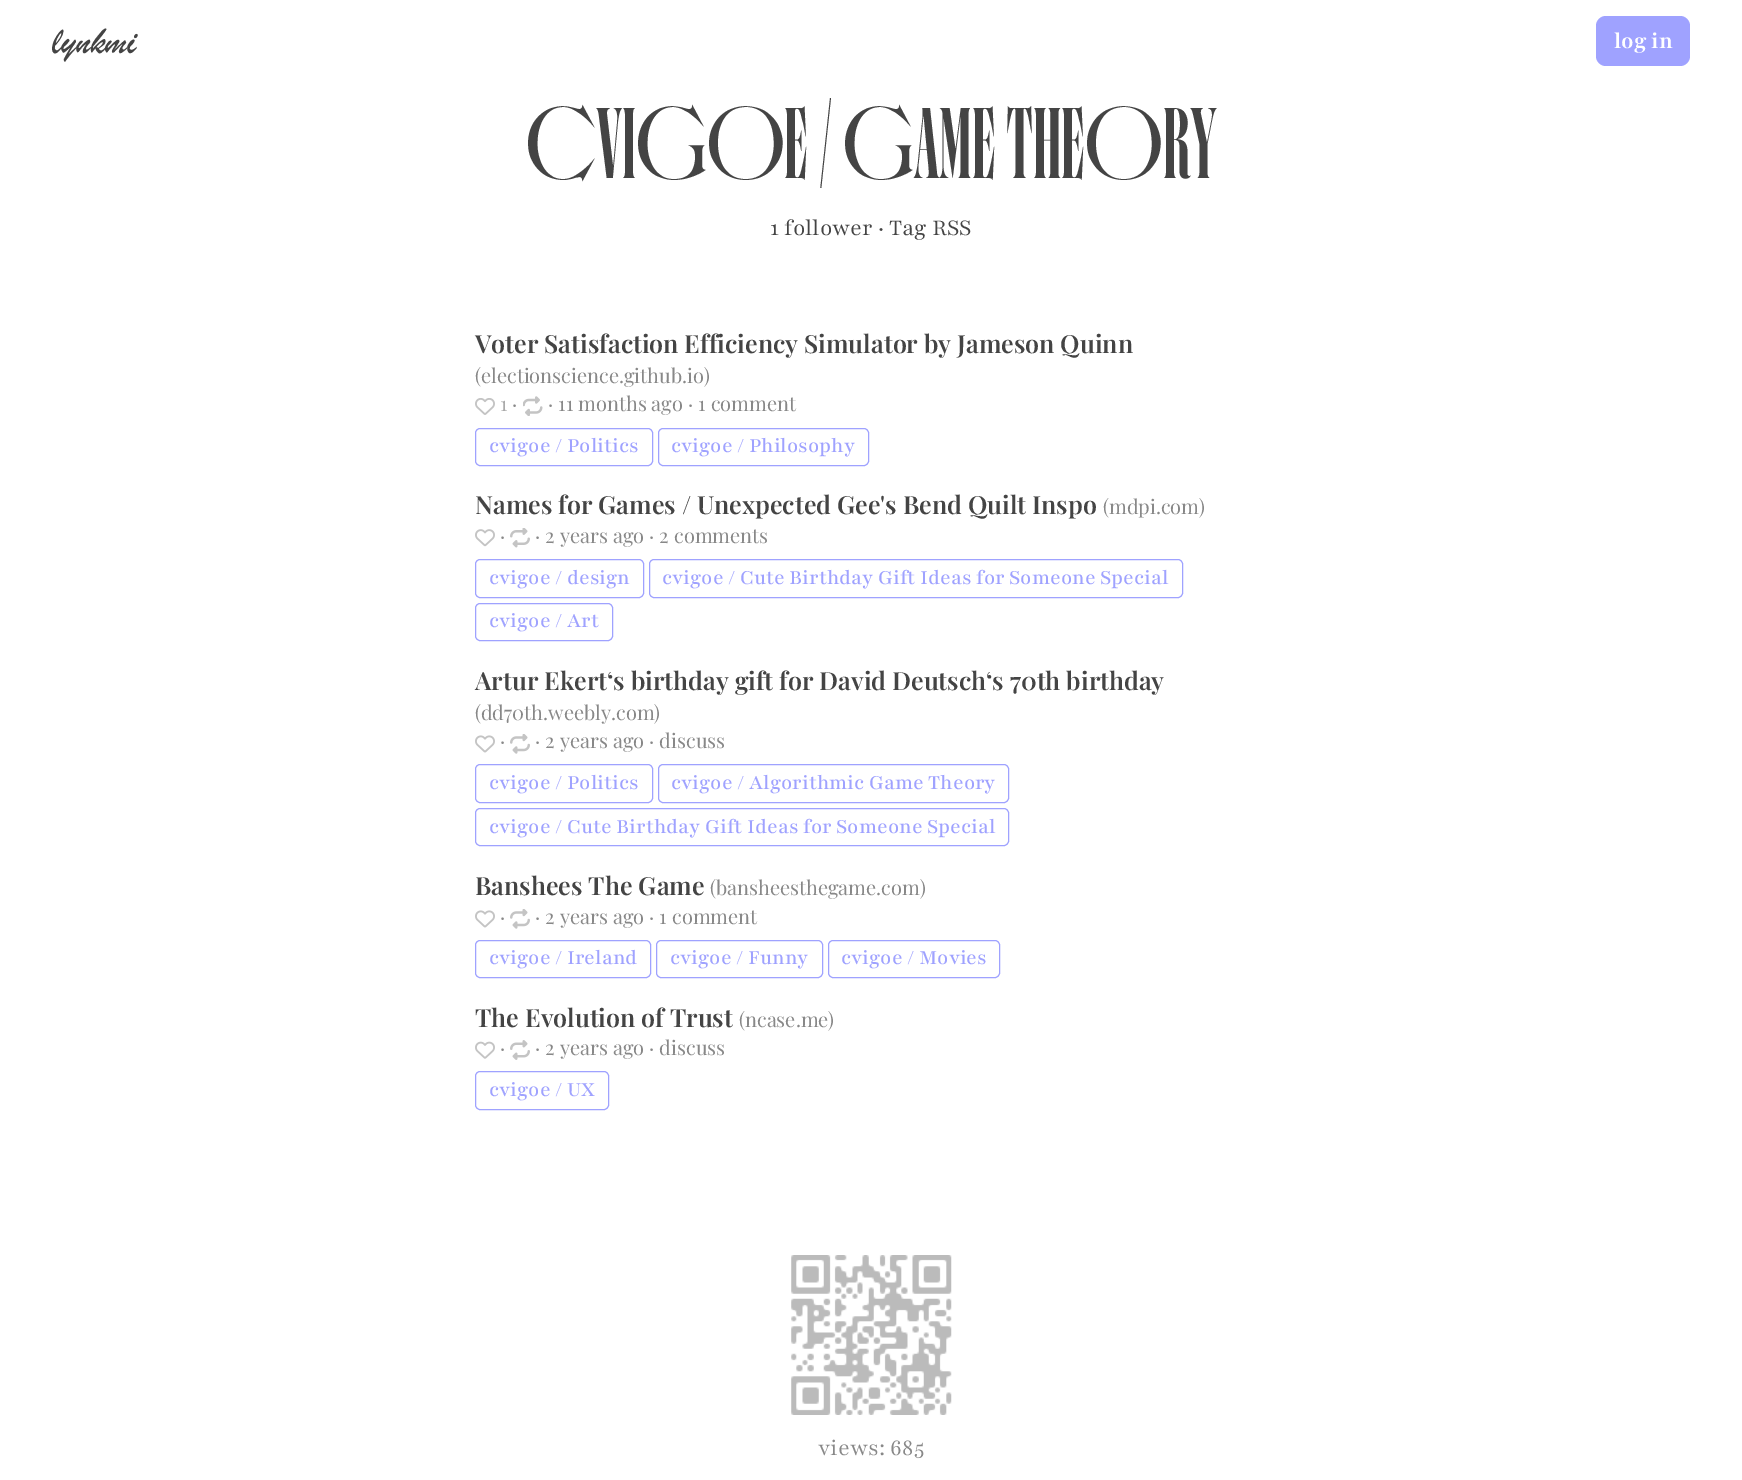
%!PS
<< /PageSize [1742 1480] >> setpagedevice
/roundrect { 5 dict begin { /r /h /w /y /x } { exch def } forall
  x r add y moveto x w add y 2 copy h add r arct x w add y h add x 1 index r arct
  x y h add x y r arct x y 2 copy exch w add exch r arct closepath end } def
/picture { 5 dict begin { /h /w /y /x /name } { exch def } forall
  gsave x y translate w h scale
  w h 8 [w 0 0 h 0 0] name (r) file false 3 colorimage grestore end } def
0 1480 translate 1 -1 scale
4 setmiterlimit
1 setgray
0 0 1742 1480 rectfill
/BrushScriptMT-Regular [40 0 0 -40 0 0] selectfont
0.267 setgray
52 53 moveto (lynkmi) show
0.624 0.635 1 setrgbcolor
1596 16 94 50 10 roundrect fill
/Playfair-Bold [25 0 0 -25 0 0] selectfont
1 setgray
1614 48 moveto (log in) show
/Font-Regular [100 0 0 -100 0 0] selectfont
0.267 setgray
526 178 moveto (cvigoe) show
818 178 moveto (/ Game Theory) show
/Playfair-Light [25 0 0 -25 0 0] selectfont
770 235 moveto (1 follower · Tag RSS) show
/PlayfairDisplay-SemiBold [25 0 0 -25 0 0] selectfont
475 353 moveto (Voter Satisfaction Efficiency Simulator by Jameson Quinn) show
/PlayfairDisplay-Regular [20 0 0 -20 0 0] selectfont
0.533 setgray
475 383 moveto (\(electionscience.github.io\)) show
(img1.rgb) 475 398 20 17 picture
0.667 setgray
500 411 moveto (1) show
0.533 setgray
512 411 moveto (·) show
(img2.rgb) 523 396 20 20 picture
548 411 moveto (· 11 months ago · 1 comment) show
0.624 0.635 1 setrgbcolor
475.5 428.5 177 37 4.5 roundrect stroke
/Playfair-Medium [22.5 0 0 -22.5 0 0] selectfont
489 452 moveto (cvigoe / Politics) show
658.5 428.5 210 37 4.5 roundrect stroke
671 452 moveto (cvigoe / Philosophy) show
/PlayfairDisplay-SemiBold [25 0 0 -25 0 0] selectfont
0.267 setgray
475 514 moveto (Names for Games / Unexpected Gee's Bend Quilt Inspo) show
/PlayfairDisplay-Regular [20 0 0 -20 0 0] selectfont
0.533 setgray
1103 514 moveto (\(mdpi.com\)) show
(img3.rgb) 475 529 20 18 picture
500 543 moveto (·) show
(img4.rgb) 510 528 20 20 picture
535 543 moveto (· 2 years ago · 2 comments) show
0.624 0.635 1 setrgbcolor
475.5 559.5 168 38 4.5 roundrect stroke
/Playfair-Medium [22.5 0 0 -22.5 0 0] selectfont
489 584 moveto (cvigoe / design) show
649.5 559.5 533 38 4.5 roundrect stroke
662 584 moveto (cvigoe / Cute Birthday Gift Ideas for Someone Special) show
475.5 603.5 137 37 4.5 roundrect stroke
489 627 moveto (cvigoe / Art) show
/PlayfairDisplay-SemiBold [25 0 0 -25 0 0] selectfont
0.267 setgray
475 690 moveto (Artur Ekert‘s birthday gift for David Deutsch‘s 70th birthday) show
/PlayfairDisplay-Regular [20 0 0 -20 0 0] selectfont
0.533 setgray
475 720 moveto (\(dd70th.weebly.com\)) show
(img5.rgb) 475 735 20 18 picture
500 748 moveto (·) show
(img6.rgb) 510 734 20 20 picture
535 748 moveto (· 2 years ago · discuss) show
0.624 0.635 1 setrgbcolor
475.5 764.5 177 38 4.5 roundrect stroke
/Playfair-Medium [22.5 0 0 -22.5 0 0] selectfont
489 789 moveto (cvigoe / Politics) show
658.5 764.5 350 38 4.5 roundrect stroke
671 789 moveto (cvigoe / Algorithmic Game Theory) show
475.5 808.5 533 37 4.5 roundrect stroke
489 833 moveto (cvigoe / Cute Birthday Gift Ideas for Someone Special) show
/PlayfairDisplay-SemiBold [25 0 0 -25 0 0] selectfont
0.267 setgray
475 895 moveto (Banshees The Game) show
/PlayfairDisplay-Regular [20 0 0 -20 0 0] selectfont
0.533 setgray
710 895 moveto (\(bansheesthegame.com\)) show
(img5.rgb) 475 910 20 18 picture
500 924 moveto (·) show
(img6.rgb) 510 909 20 20 picture
535 924 moveto (· 2 years ago · 1 comment) show
0.624 0.635 1 setrgbcolor
475.5 940.5 175 37 4.5 roundrect stroke
/Playfair-Medium [22.5 0 0 -22.5 0 0] selectfont
489 964 moveto (cvigoe / Ireland) show
656.5 940.5 166 37 4.5 roundrect stroke
670 964 moveto (cvigoe / Funny) show
828.5 940.5 171 37 4.5 roundrect stroke
841 964 moveto (cvigoe / Movies) show
/PlayfairDisplay-SemiBold [25 0 0 -25 0 0] selectfont
0.267 setgray
475 1027 moveto (The Evolution of Trust) show
/PlayfairDisplay-Regular [20 0 0 -20 0 0] selectfont
0.533 setgray
739 1027 moveto (\(ncase.me\)) show
(img7.rgb) 475 1041 20 18 picture
500 1055 moveto (·) show
(img8.rgb) 510 1040 20 20 picture
535 1055 moveto (· 2 years ago · discuss) show
0.624 0.635 1 setrgbcolor
475.5 1071.5 133 38 4.5 roundrect stroke
/Playfair-Medium [22.5 0 0 -22.5 0 0] selectfont
489 1096 moveto (cvigoe / UX) show
(img9.rgb) 791 1255 161 160 picture
/Playfair-Light [25 0 0 -25 0 0] selectfont
0.533 setgray
818 1455 moveto (views: 685) show
showpage
